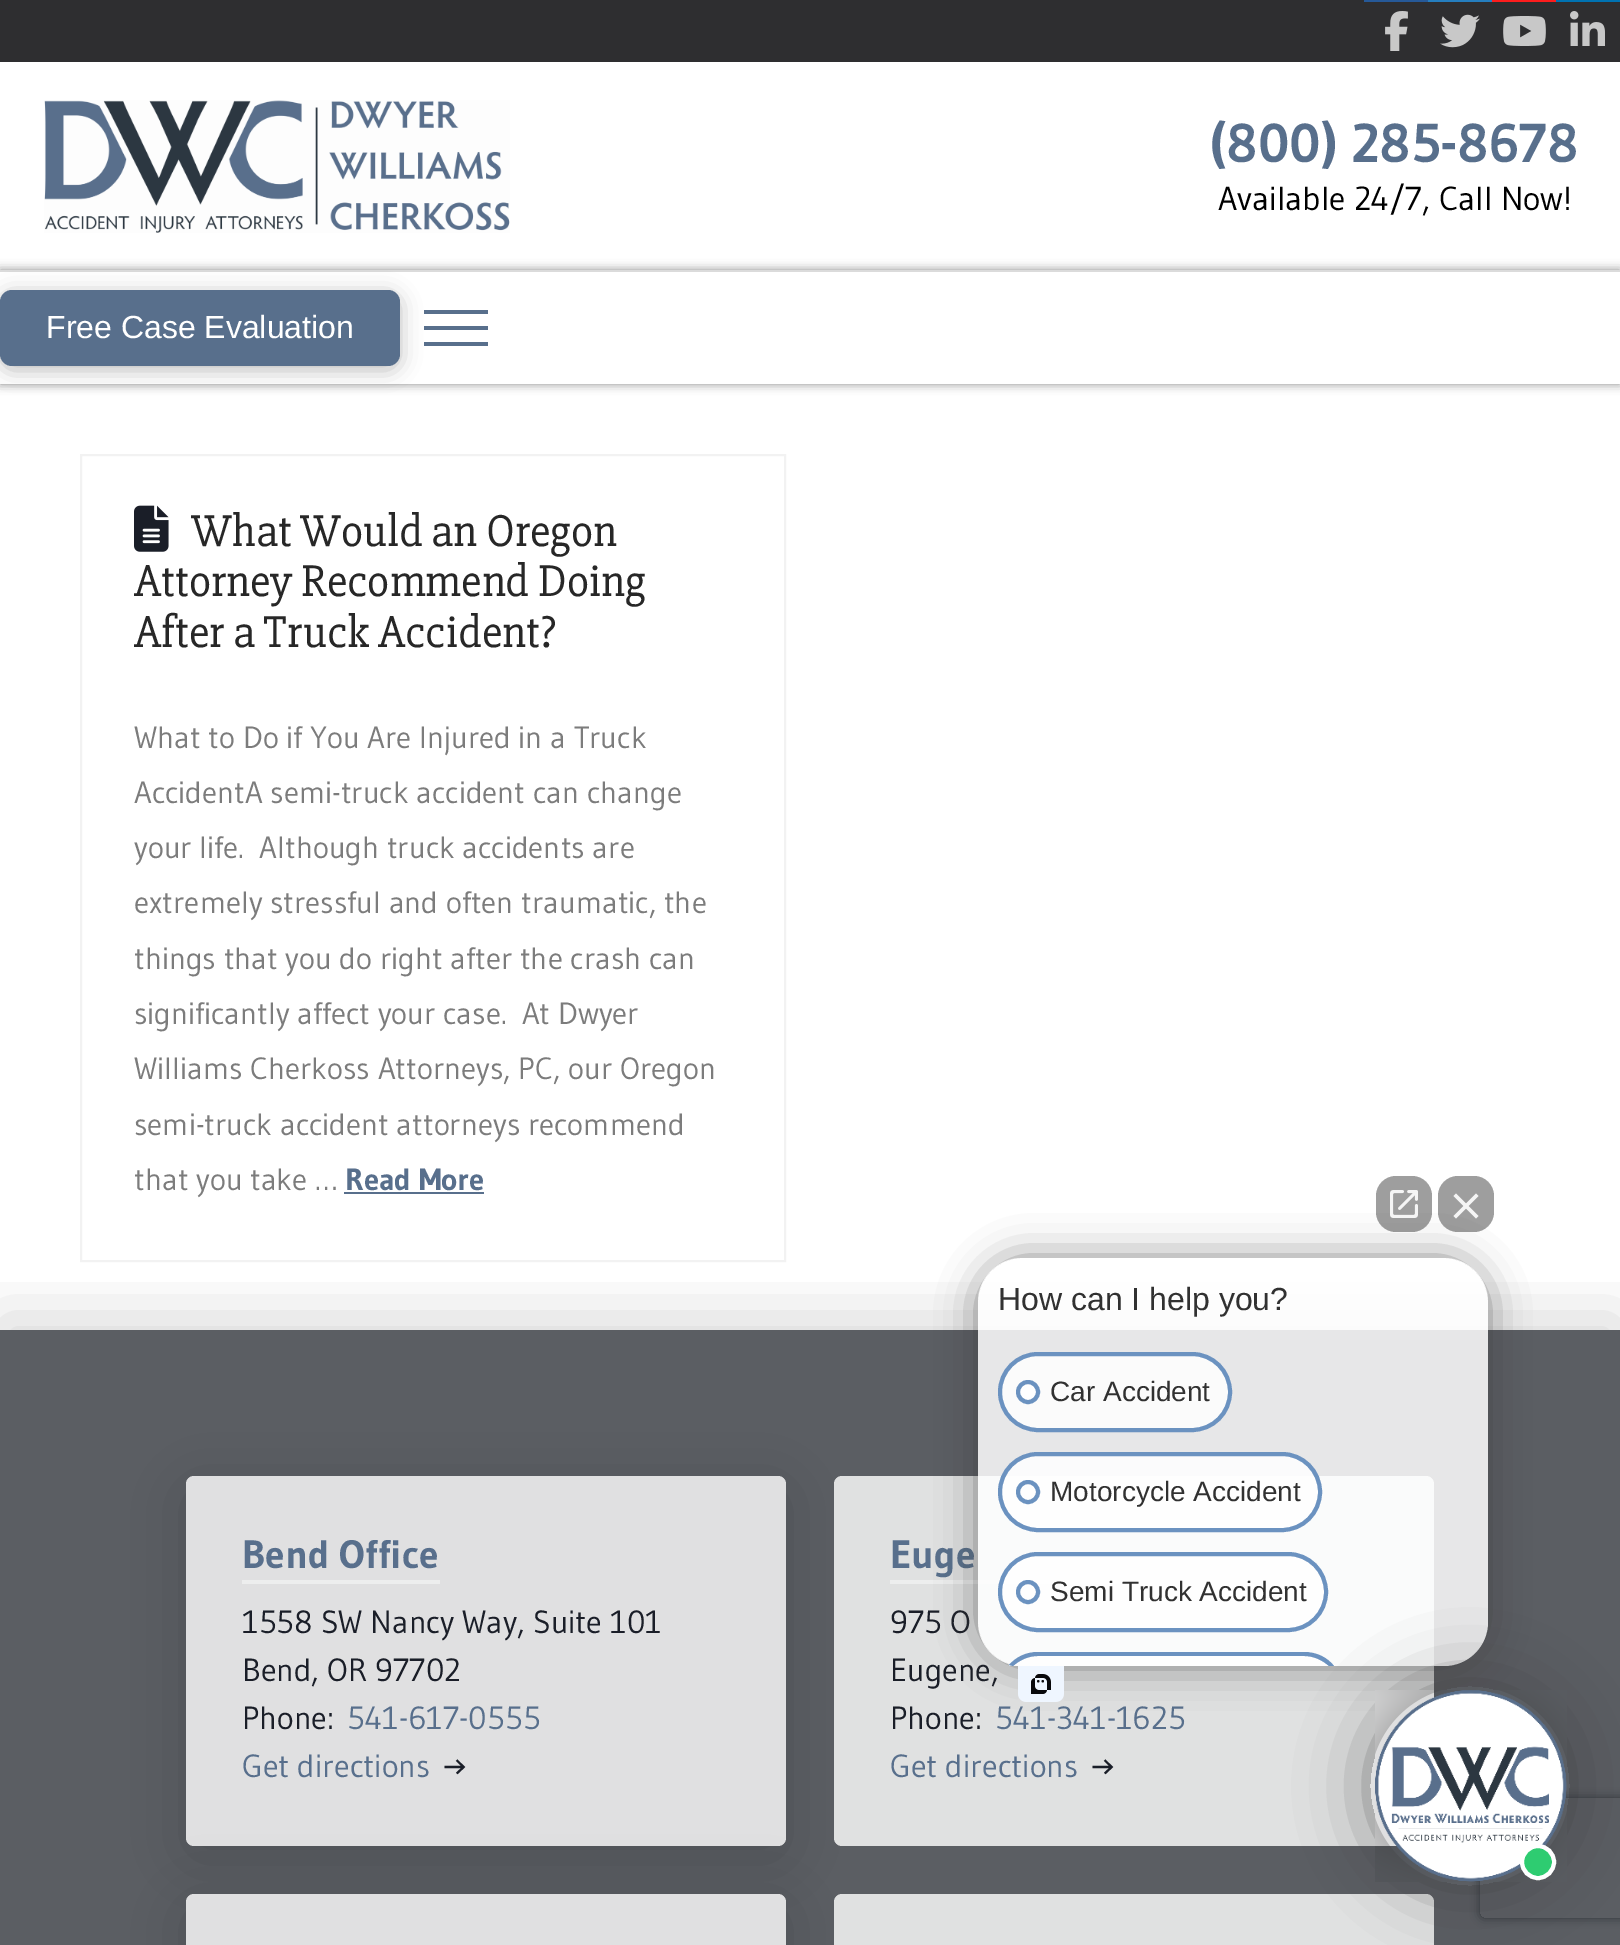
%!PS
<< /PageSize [1620 1945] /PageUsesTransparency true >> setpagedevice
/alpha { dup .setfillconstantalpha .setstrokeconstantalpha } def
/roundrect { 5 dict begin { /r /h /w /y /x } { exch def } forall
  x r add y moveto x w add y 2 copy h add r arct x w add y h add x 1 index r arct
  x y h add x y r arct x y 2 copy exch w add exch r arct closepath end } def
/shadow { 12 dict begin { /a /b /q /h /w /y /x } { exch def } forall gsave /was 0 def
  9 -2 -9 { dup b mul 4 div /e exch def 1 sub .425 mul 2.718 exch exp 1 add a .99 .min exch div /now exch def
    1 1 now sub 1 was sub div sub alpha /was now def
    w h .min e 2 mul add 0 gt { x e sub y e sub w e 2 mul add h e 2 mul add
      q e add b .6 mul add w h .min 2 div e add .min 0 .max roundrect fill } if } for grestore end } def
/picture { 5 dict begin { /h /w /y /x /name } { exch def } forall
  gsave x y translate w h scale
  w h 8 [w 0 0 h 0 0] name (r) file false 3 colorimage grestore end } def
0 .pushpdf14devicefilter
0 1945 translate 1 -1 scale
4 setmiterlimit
1 setgray
0 0 1620 1945 rectfill
0.357 0.369 0.388 setrgbcolor
0 1330 1620 615 rectfill
0.18 0.18 0.188 setrgbcolor
0 0 1620 62 rectfill
0.149 0.349 0.596 setrgbcolor
1364 0 64 2 rectfill
(img1.rgb) 1385 11 23 40 picture
0.145 0.494 0.749 setrgbcolor
1428 0 64 2 rectfill
(img2.rgb) 1440 14 40 34 picture
0.992 0.114 0.114 setrgbcolor
1492 0 64 2 rectfill
(img3.rgb) 1503 16 43 30 picture
0 0.447 0.694 setrgbcolor
1556 0 64 2 rectfill
(img4.rgb) 1570 11 35 35 picture
(img5.rgb) 44 100 466 133 picture
/Gudea-Bold [54.5 0 0 -54.5 0 0] selectfont
0.345 0.435 0.549 setrgbcolor
1210 162 moveto (\(800\) 285-8678) show
/Gudea-Regular [33.25 0 0 -33.25 0 0] selectfont
0 setgray
1218 210 moveto (Available 24/7, Call Now!) show
gsave
newpath 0 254 moveto 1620 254 lineto 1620 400 lineto 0 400 lineto closepath 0 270 moveto 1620 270 lineto 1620 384 lineto 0 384 lineto closepath eoclip newpath
0.133 setgray
0 270 1620 114 0 5 0.53 shadow
grestore
0.859 setgray
0 270 1620 2 rectfill
0 setgray
0 294 400 76 12 10.5 0.25 shadow
0.345 0.435 0.549 setrgbcolor
0 290 400 76 12 roundrect fill
/LiberationSans-Regular [32 0 0 -32 0 0] selectfont
1 setgray
46 338 moveto (Free Case Evaluation) show
0.345 0.435 0.549 setrgbcolor
424 310 64 4 rectfill
424 326 64 4 rectfill
424 342 64 4 rectfill
0.949 setgray
2 setlinewidth
81 455 704 806 rectstroke
(img6.rgb) 134 505 35 47 picture
/Slabo27px-Regular [46 0 0 -46 0 0] selectfont
0.153 setgray
191 546 moveto (What Would an Oregon) show
134 596 moveto (Attorney Recommend Doing) show
134 647 moveto (After a Truck Accident?) show
/Gudea-Regular [30.75 0 0 -30.75 0 0] selectfont
0.486 setgray
134 748 moveto (What to Do if You Are Injured in a Truck) show
134 803 moveto (AccidentA semi-truck accident can change) show
134 858 moveto (your life.  Although truck accidents are) show
134 913 moveto (extremely stressful and often traumatic, the) show
134 969 moveto (things that you do right after the crash can) show
134 1024 moveto (significantly affect your case.  At Dwyer) show
134 1079 moveto (Williams Cherkoss Attorneys, PC, our Oregon) show
134 1135 moveto (semi-truck accident attorneys recommend) show
134 1190 moveto (that you take …) show
/Gudea-Bold [30.75 0 0 -30.75 0 0] selectfont
0.345 0.435 0.549 setrgbcolor
345 1190 moveto (Read More) show
344 1192 140 2 rectfill
gsave
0 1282 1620 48 rectclip
0 setgray
0 1318 1620 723 0 32 0.15 shadow
grestore
0 setgray
186 1488 600 370 8 32 0.15 shadow
0.878 0.878 0.882 setrgbcolor
186 1476 600 370 8 roundrect fill
0.929 0.933 0.933 setrgbcolor
242 1580 198 4 rectfill
/Gudea-Bold [39.5 0 0 -39.5 0 0] selectfont
0.345 0.435 0.549 setrgbcolor
242 1568 moveto (Bend Office) show
/Gudea-Regular [32 0 0 -32 0 0] selectfont
0.102 0.118 0.157 setrgbcolor
242 1633 moveto (1558 SW Nancy Way, Suite 101) show
242 1681 moveto (Bend, OR 97702) show
242 1729 moveto (Phone:) show
0.345 0.435 0.549 setrgbcolor
347 1729 moveto (541-617-0555) show
242 1777 moveto (Get directions) show
0.102 0.118 0.157 setrgbcolor
443 1777 moveto (→) show
0.9 alpha
0.937 setgray
834 1476 600 370 8 roundrect fill
1 alpha
0.929 0.933 0.933 setrgbcolor
890 1580 238 4 rectfill
/Gudea-Bold [39.5 0 0 -39.5 0 0] selectfont
0.345 0.435 0.549 setrgbcolor
890 1568 moveto (Euge) show
/Gudea-Regular [32 0 0 -32 0 0] selectfont
0.102 0.118 0.157 setrgbcolor
890 1633 moveto (975 O) show
890 1681 moveto (Eugene,) show
890 1729 moveto (Phone:) show
0.345 0.435 0.549 setrgbcolor
995 1729 moveto (541-341-1625) show
890 1777 moveto (Get directions) show
0.102 0.118 0.157 setrgbcolor
1091 1777 moveto (→) show
0 setgray
186 1906 600 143 8 32 0.15 shadow
0.878 0.878 0.882 setrgbcolor
186 1894 600 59 8 roundrect fill
0.9 alpha
0.937 setgray
834 1894 600 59 8 roundrect fill
gsave
newpath 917 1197 moveto 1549 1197 lineto 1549 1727 lineto 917 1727 lineto closepath 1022 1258 moveto 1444 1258 lineto 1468.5 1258 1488 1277.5 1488 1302 curveto 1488 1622 lineto 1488 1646.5 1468.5 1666 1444 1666 curveto 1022 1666 lineto 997.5 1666 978 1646.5 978 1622 curveto 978 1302 lineto 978 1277.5 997.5 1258 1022 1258 curveto closepath eoclip newpath
1 alpha
0.235 setgray
978 1258 510 408 44 20 0.6 shadow
grestore
0.85 alpha
1 setgray
978 1258 510 408 44 roundrect fill
0.45 alpha
0.153 setgray
1376 1176 56 56 20 roundrect fill
1 alpha
(img7.rgb) 1390 1190 28 28 picture
0.45 alpha
1438 1176 56 56 20 roundrect fill
1 alpha
0.961 setgray
newpath 1453.5 1196 moveto 1456 1193.5 lineto 1478.5 1216 lineto 1476 1218.5 lineto closepath fill
newpath 1476 1193.5 moveto 1478.5 1196 lineto 1456 1218.5 lineto 1453.5 1216 lineto closepath fill
/LiberationSans-Regular [32 0 0 -32 0 0] selectfont
0.192 setgray
998 1310 moveto (How can I help you?) show
0.984 setgray
1000 1354 230 76 38 roundrect gsave fill grestore
0.42 0.573 0.753 setrgbcolor
4 setlinewidth
stroke
1 setgray
newpath 1028 1392 10 0 360 arc closepath gsave fill grestore
0.42 0.573 0.753 setrgbcolor
stroke
/LiberationSans-Regular [28 0 0 -28 0 0] selectfont
0.192 setgray
1050 1401 moveto (Car Accident) show
0.85 alpha
1 setgray
1000 1454 320 76 38 roundrect fill
1 alpha
0.42 0.573 0.753 setrgbcolor
1000 1454 320 76 38 roundrect stroke
newpath 1028 1492 10 0 360 arc closepath stroke
0.192 setgray
1050 1501 moveto (Motorcycle Accident) show
0.85 alpha
1 setgray
1000 1554 326 76 38 roundrect fill
1 alpha
0.42 0.573 0.753 setrgbcolor
1000 1554 326 76 38 roundrect stroke
newpath 1028 1592 10 0 360 arc closepath stroke
0.192 setgray
1050 1601 moveto (Semi Truck Accident) show
gsave
978 1258 510 408 40 roundrect clip newpath
0.85 alpha
1 setgray
newpath 1038 1652 moveto 1304 1652 lineto 1326 1652 1344 1670 1344 1692 curveto 1344 1666 lineto 998 1666 lineto 998 1692 lineto 998 1670 1016 1652 1038 1652 curveto closepath fill
grestore
0.42 0.573 0.753 setrgbcolor
newpath 1038 1652 moveto 1026 1652 1016 1657 1009 1665 curveto 1013 1666 lineto 1020 1660 1028 1656 1038 1656 curveto 1304 1656 lineto 1314 1656 1322 1660 1329 1666 curveto 1334 1666 lineto 1327 1657 1316 1652 1304 1652 curveto closepath fill
(img8.rgb) 1018 1666 46 36 picture
gsave
newpath 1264 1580 moveto 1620 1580 lineto 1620 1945 lineto 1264 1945 lineto closepath 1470 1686 moveto 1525 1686 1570 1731 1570 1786 curveto 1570 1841 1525 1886 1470 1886 curveto 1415 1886 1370 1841 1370 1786 curveto 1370 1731 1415 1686 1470 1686 curveto closepath eoclip newpath
0.235 setgray
1370 1686 200 200 100 35 0.6 shadow
grestore
gsave
newpath 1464 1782 moveto 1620 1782 lineto 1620 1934 lineto 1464 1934 lineto closepath 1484 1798 moveto 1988 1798 lineto 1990 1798 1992 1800 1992 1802 curveto 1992 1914 lineto 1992 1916 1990 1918 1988 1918 curveto 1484 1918 lineto 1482 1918 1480 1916 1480 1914 curveto 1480 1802 lineto 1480 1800 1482 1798 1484 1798 curveto closepath eoclip newpath
0.184 0.2 0.22 setrgbcolor
1480 1798 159 120 4 5 1 shadow
grestore
(img9.rgb) 1375 1690 192 192 picture
0.18 0.8 0.443 setrgbcolor
newpath 1538 1862 16 0 360 arc closepath gsave fill grestore
1 setgray
stroke
.poppdf14devicefilter showpage
